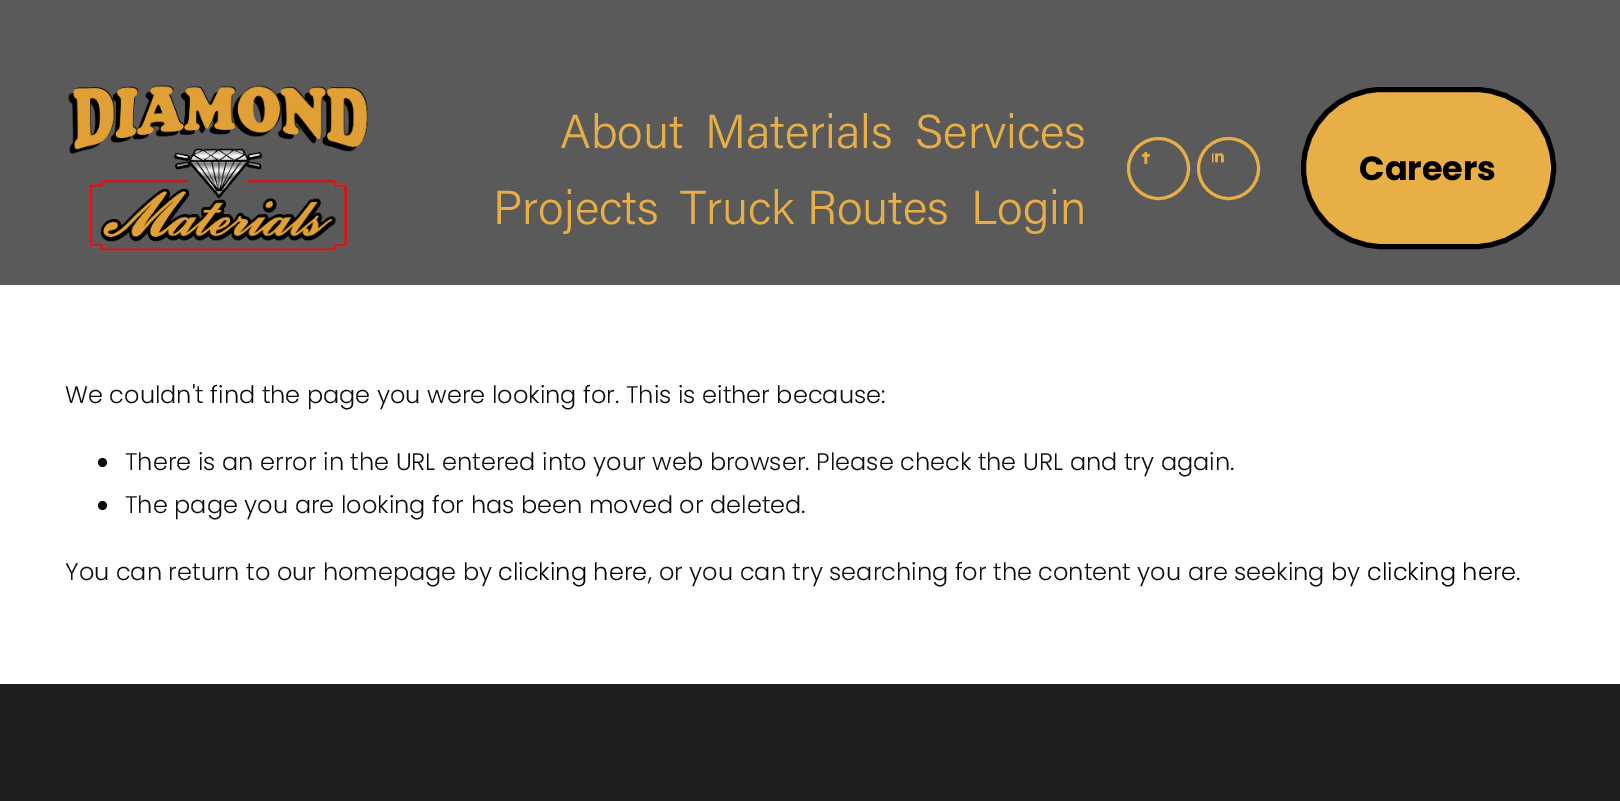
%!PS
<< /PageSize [1620 801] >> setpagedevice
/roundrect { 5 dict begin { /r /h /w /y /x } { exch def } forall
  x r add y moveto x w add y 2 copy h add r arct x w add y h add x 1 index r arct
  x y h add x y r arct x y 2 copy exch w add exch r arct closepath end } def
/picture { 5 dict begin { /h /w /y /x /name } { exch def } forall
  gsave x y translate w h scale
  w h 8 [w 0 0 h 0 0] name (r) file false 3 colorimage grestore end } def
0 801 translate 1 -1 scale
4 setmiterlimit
1 setgray
0 0 1620 801 rectfill
0.353 setgray
0 0 1620 285 rectfill
(img1.rgb) 68 85 300 166 picture
/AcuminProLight-Light [47.5 0 0 -47.5 0 0] selectfont
0.914 0.686 0.278 setrgbcolor
560 148 moveto (About) show
705 148 moveto (Materials) show
915 148 moveto (Services) show
493 224 moveto (Projects) show
680 224 moveto (Truck Routes) show
971 224 moveto (Login) show
3 setlinewidth
newpath 1158.5 168.5 30 0 360 arc closepath stroke
(img2.rgb) 1142 152 8 12 picture
newpath 1228.5 168.5 30 0 360 arc closepath stroke
(img3.rgb) 1212 152 12 11 picture
1303.5 89.5 250 157 78.5 roundrect gsave fill grestore
0 setgray
5 setlinewidth
stroke
/Poppins-Bold [33.5 0 0 -33.5 0 0] selectfont
1359 180 moveto (Careers) show
/Poppins-Light [24 0 0 -24 0 0] selectfont
0.051 setgray
65 403 moveto (We couldn't find the page you were looking for. This is either because:) show
newpath 102.5 462.5 4.5 0 360 arc closepath fill
125 470 moveto (There is an error in the URL entered into your web browser. Please check the URL and try again.) show
newpath 102.5 505.5 4.5 0 360 arc closepath fill
125 513 moveto (The page you are looking for has been moved or deleted.) show
65 580 moveto (You can return to our homepage by) show
0 setgray
498 580 moveto (clicking here) show
0.051 setgray
648 580 moveto (, or you can try searching for the content you are seeking by) show
0 setgray
1367 580 moveto (clicking here) show
0.051 setgray
1516 580 moveto (.) show
0.122 setgray
0 684 1620 117 rectfill
showpage
